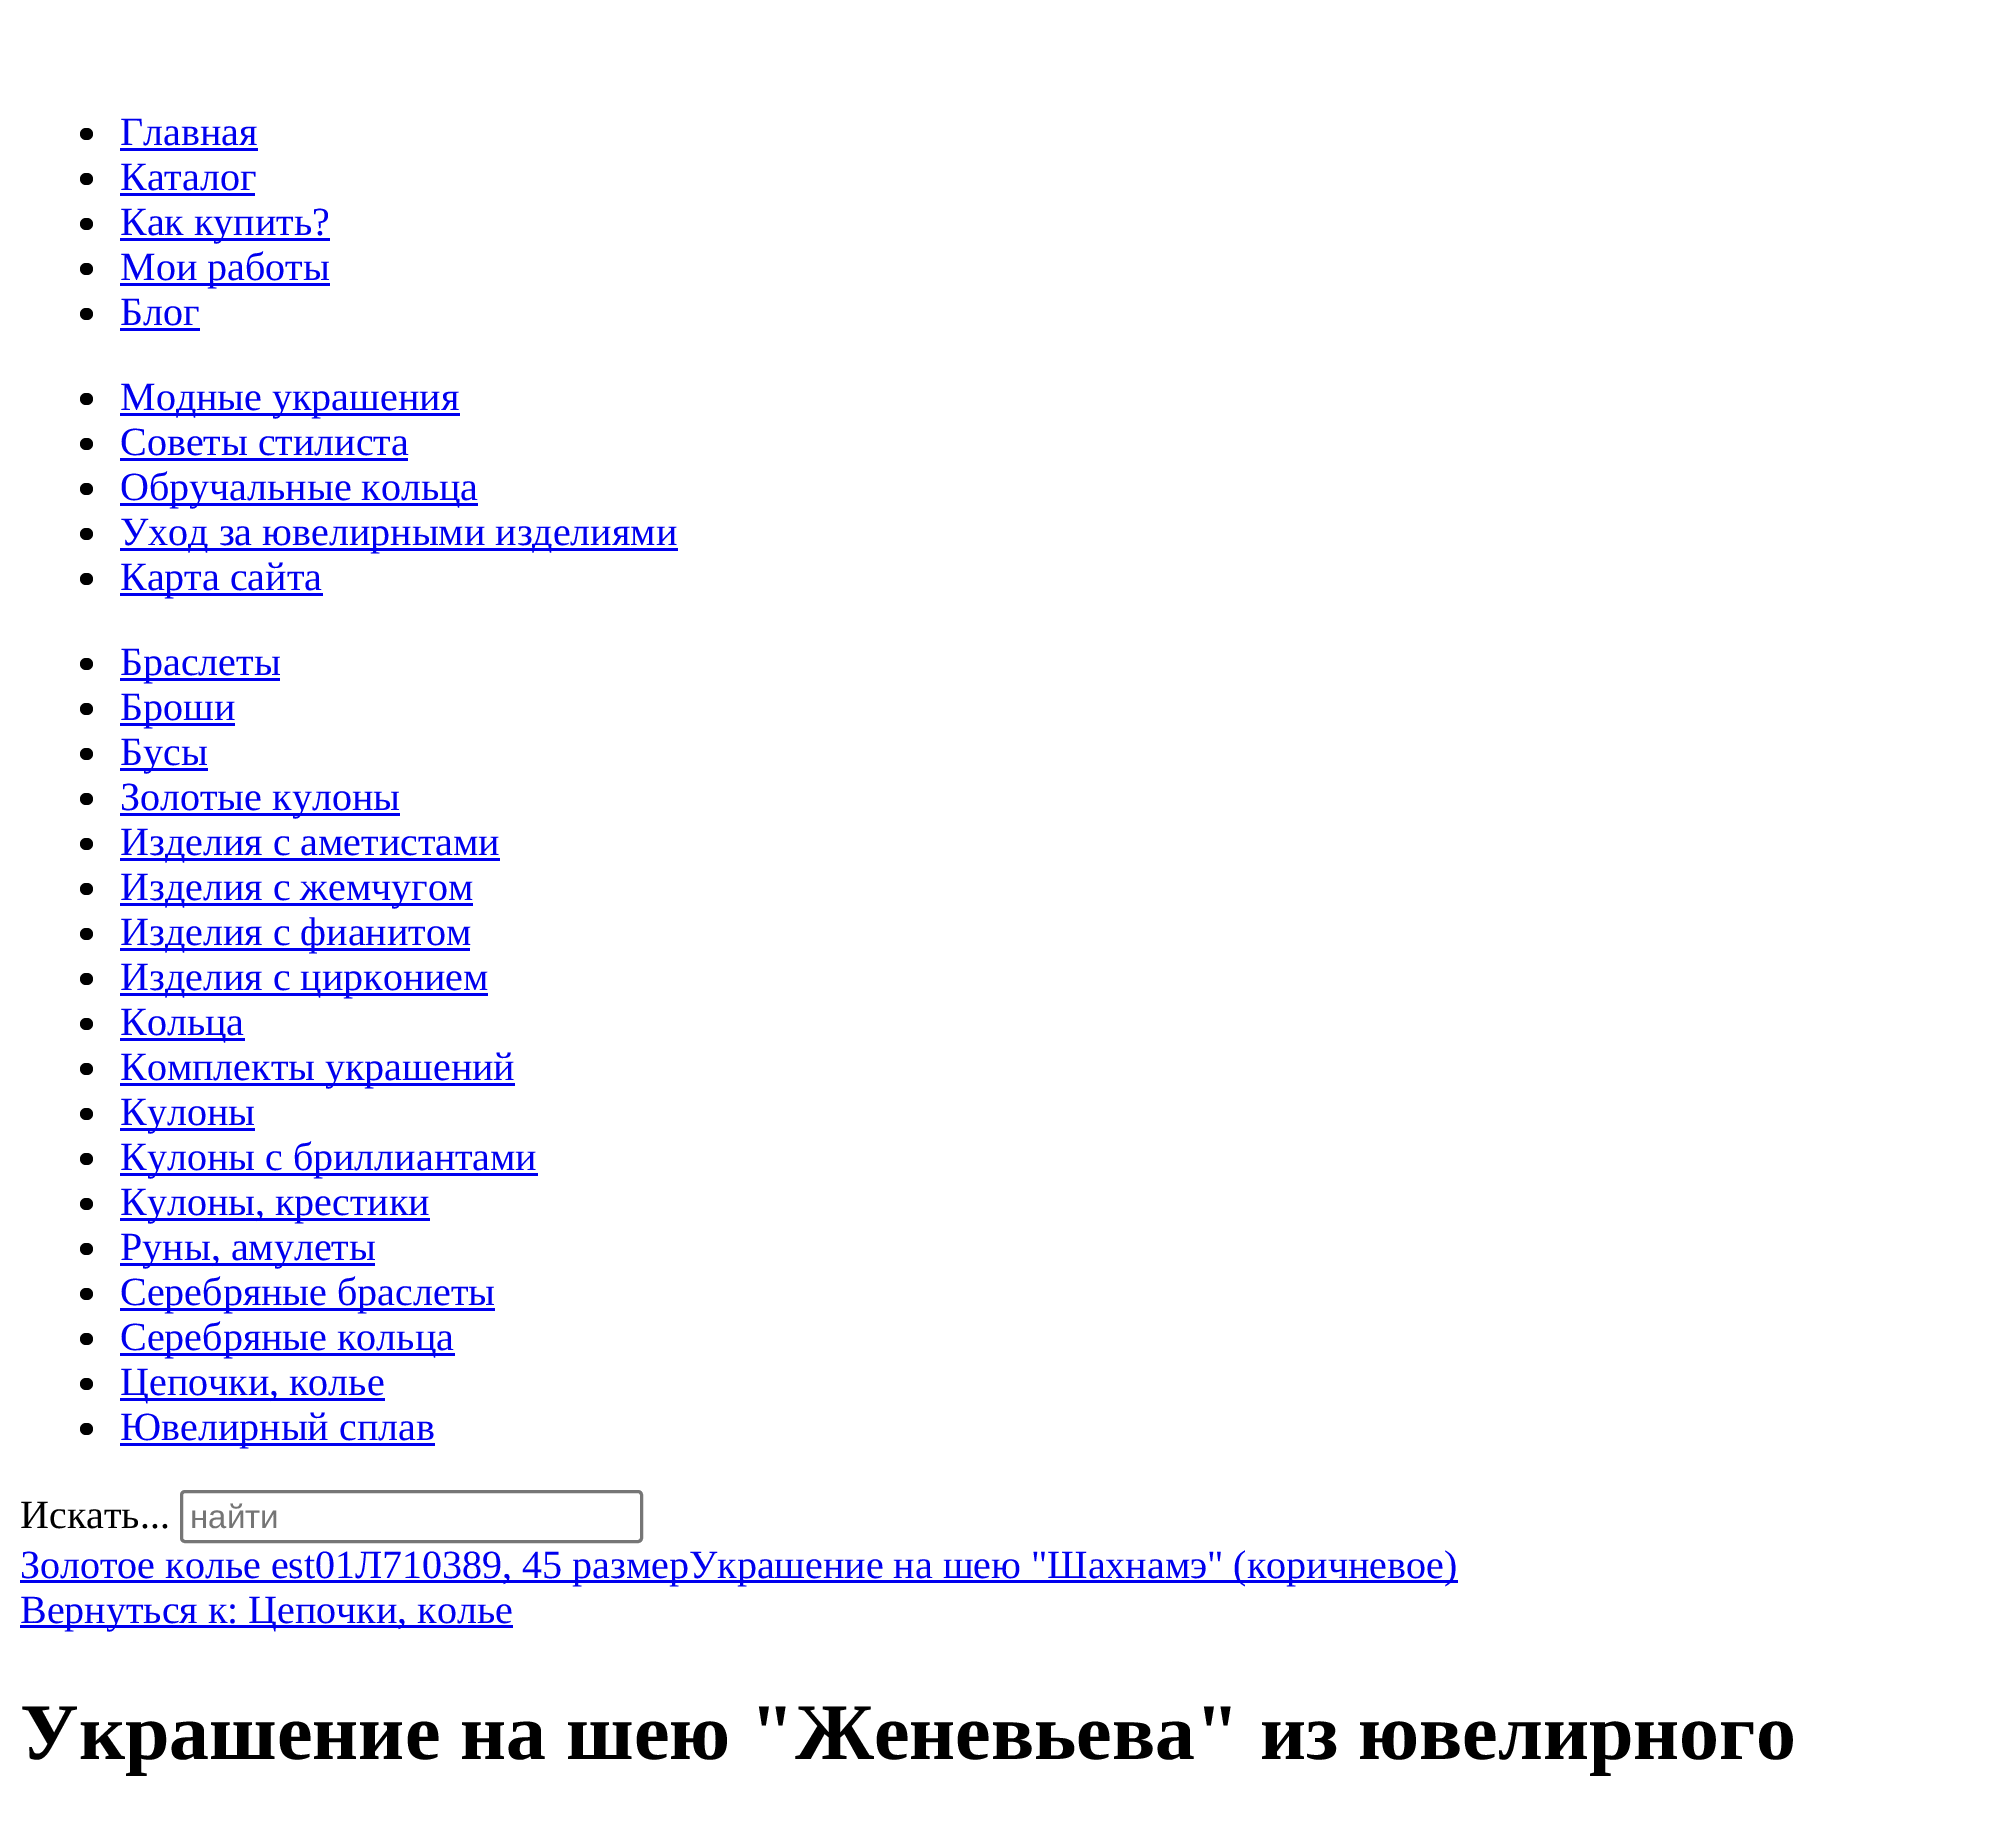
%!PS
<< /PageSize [2012 1828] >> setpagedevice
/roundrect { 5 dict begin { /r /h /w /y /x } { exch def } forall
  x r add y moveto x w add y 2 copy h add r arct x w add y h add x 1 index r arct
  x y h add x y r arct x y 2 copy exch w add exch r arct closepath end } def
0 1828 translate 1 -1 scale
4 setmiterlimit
1 setgray
0 0 2012 1828 rectfill
0 setgray
80 128 13 12 6 roundrect fill
/LiberationSerif-Regular [40 0 0 -40 0 0] selectfont
0 0 0.933 setrgbcolor
120 145 moveto (Главная) show
120 148 138 3 rectfill
0 setgray
80 173 13 12 6 roundrect fill
0 0 0.933 setrgbcolor
120 190 moveto (Каталог) show
120 193 135 3 rectfill
0 setgray
80 218 13 12 6 roundrect fill
0 0 0.933 setrgbcolor
120 238 210 3 rectfill
120 235 moveto (Как купить?) show
0 setgray
80 263 13 12 6 roundrect fill
0 0 0.933 setrgbcolor
120 283 210 3 rectfill
120 280 moveto (Мои работы) show
0 setgray
80 308 13 12 6 roundrect fill
0 0 0.933 setrgbcolor
120 325 moveto (Блог) show
120 328 80 3 rectfill
0 setgray
80 393 13 12 6 roundrect fill
0 0 0.933 setrgbcolor
120 413 340 3 rectfill
120 410 moveto (Модные украшения) show
0 setgray
80 438 13 12 6 roundrect fill
0 0 0.933 setrgbcolor
120 455 moveto (Советы стилиста) show
120 458 288 3 rectfill
0 setgray
80 483 13 12 6 roundrect fill
0 0 0.933 setrgbcolor
120 503 358 3 rectfill
120 500 moveto (Обручальные кольца) show
0 setgray
80 528 13 12 6 roundrect fill
0 0 0.933 setrgbcolor
120 548 558 3 rectfill
120 545 moveto (Уход за ювелирными изделиями) show
0 setgray
80 573 13 12 6 roundrect fill
0 0 0.933 setrgbcolor
120 593 203 3 rectfill
120 590 moveto (Карта сайта) show
0 setgray
80 658 13 12 6 roundrect fill
0 0 0.933 setrgbcolor
120 678 160 3 rectfill
120 675 moveto (Браслеты) show
0 setgray
80 703 13 12 6 roundrect fill
0 0 0.933 setrgbcolor
120 723 115 3 rectfill
120 720 moveto (Броши) show
0 setgray
80 748 13 12 6 roundrect fill
0 0 0.933 setrgbcolor
120 768 88 3 rectfill
120 765 moveto (Бусы) show
0 setgray
80 793 13 12 6 roundrect fill
0 0 0.933 setrgbcolor
120 813 280 3 rectfill
120 810 moveto (Золотые кулоны) show
0 setgray
80 838 13 12 6 roundrect fill
0 0 0.933 setrgbcolor
120 858 380 3 rectfill
120 855 moveto (Изделия с аметистами) show
0 setgray
80 883 13 12 6 roundrect fill
0 0 0.933 setrgbcolor
120 903 353 3 rectfill
120 900 moveto (Изделия с жемчугом) show
0 setgray
80 928 13 12 6 roundrect fill
0 0 0.933 setrgbcolor
120 948 350 3 rectfill
120 945 moveto (Изделия с фианитом) show
0 setgray
80 973 13 12 6 roundrect fill
0 0 0.933 setrgbcolor
120 993 368 3 rectfill
120 990 moveto (Изделия с цирконием) show
0 setgray
80 1018 13 12 6 roundrect fill
0 0 0.933 setrgbcolor
120 1038 125 3 rectfill
120 1035 moveto (Кольца) show
0 setgray
80 1063 13 12 6 roundrect fill
0 0 0.933 setrgbcolor
120 1083 395 3 rectfill
120 1080 moveto (Комплекты украшений) show
0 setgray
80 1108 13 12 6 roundrect fill
0 0 0.933 setrgbcolor
120 1128 135 3 rectfill
120 1125 moveto (Кулоны) show
0 setgray
80 1153 13 12 6 roundrect fill
0 0 0.933 setrgbcolor
120 1173 418 3 rectfill
120 1170 moveto (Кулоны с бриллиантами) show
0 setgray
80 1198 13 12 6 roundrect fill
0 0 0.933 setrgbcolor
120 1218 310 3 rectfill
120 1215 moveto (Кулоны, крестики) show
0 setgray
80 1243 13 12 6 roundrect fill
0 0 0.933 setrgbcolor
120 1263 255 3 rectfill
120 1260 moveto (Руны, амулеты) show
0 setgray
80 1288 13 12 6 roundrect fill
0 0 0.933 setrgbcolor
120 1308 375 3 rectfill
120 1305 moveto (Серебряные браслеты) show
0 setgray
80 1333 13 12 6 roundrect fill
0 0 0.933 setrgbcolor
120 1353 335 3 rectfill
120 1350 moveto (Серебряные кольца) show
0 setgray
80 1378 13 12 6 roundrect fill
0 0 0.933 setrgbcolor
120 1398 265 3 rectfill
120 1395 moveto (Цепочки, колье) show
0 setgray
80 1423 13 12 6 roundrect fill
0 0 0.933 setrgbcolor
120 1443 315 3 rectfill
120 1440 moveto (Ювелирный сплав) show
0 setgray
20 1528 moveto (Искать...) show
0.463 setgray
3 setlinewidth
181.5 1491.5 460 50 3.5 roundrect stroke
/LiberationSans-Regular [33 0 0 -33 0 0] selectfont
0.459 setgray
190 1528 moveto (найти) show
0 0 0.933 setrgbcolor
20 1580 1438 3 rectfill
/LiberationSerif-Regular [40 0 0 -40 0 0] selectfont
20 1578 moveto (Золотое колье est01Л710389, 45 размерУкрашение на шею "Шахнамэ" \(коричневое\)) show
20 1625 493 3 rectfill
20 1623 moveto (Вернуться к: Цепочки, колье) show
/LiberationSerif-Bold [80 0 0 -80 0 0] selectfont
0 setgray
20 1759 moveto (Украшение на шею "Женевьева" из ювелирного) show
showpage
